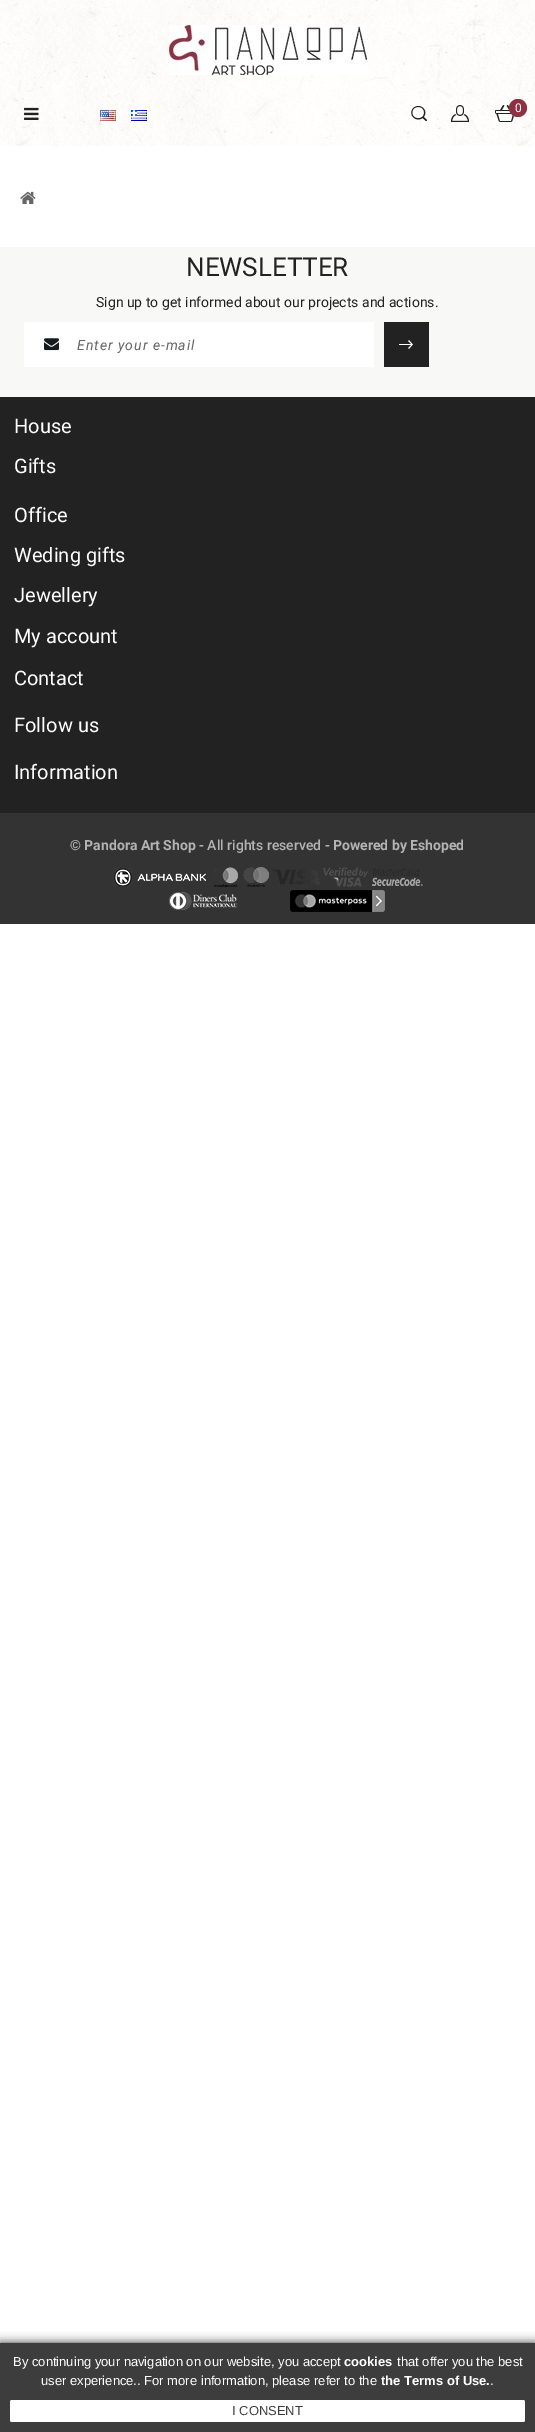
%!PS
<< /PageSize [535 2432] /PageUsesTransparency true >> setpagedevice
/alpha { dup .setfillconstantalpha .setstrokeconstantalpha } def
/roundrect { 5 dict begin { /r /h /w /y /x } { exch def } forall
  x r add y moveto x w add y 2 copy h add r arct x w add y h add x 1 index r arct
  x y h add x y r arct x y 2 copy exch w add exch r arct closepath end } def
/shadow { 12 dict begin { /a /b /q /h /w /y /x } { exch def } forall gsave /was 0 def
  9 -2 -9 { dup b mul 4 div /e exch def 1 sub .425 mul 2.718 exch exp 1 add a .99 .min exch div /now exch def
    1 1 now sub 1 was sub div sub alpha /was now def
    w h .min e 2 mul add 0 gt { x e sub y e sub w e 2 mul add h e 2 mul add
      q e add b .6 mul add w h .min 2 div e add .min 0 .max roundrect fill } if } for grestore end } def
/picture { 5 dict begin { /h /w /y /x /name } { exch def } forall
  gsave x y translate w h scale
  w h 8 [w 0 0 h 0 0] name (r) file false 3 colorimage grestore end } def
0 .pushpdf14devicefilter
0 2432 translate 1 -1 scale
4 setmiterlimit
1 setgray
0 0 535 2432 rectfill
(img1.rgb) 0 0 535 146 picture
(img2.rgb) 169 25 198 50 picture
(img3.rgb) 24 107 15 13 picture
(img4.rgb) 100 110 16 11 picture
(img5.rgb) 131 110 16 11 picture
(img6.rgb) 411 105 16 16 picture
(img7.rgb) 451 105 18 17 picture
(img8.rgb) 495 105 19 17 picture
0.557 0.192 0.263 setrgbcolor
newpath 518 108 9 0 360 arc closepath fill
/Roboto-Regular [12 0 0 -12 0 0] selectfont
1 setgray
515 112 moveto (0) show
(img9.rgb) 20 191 16 13 picture
0.133 setgray
0 397 535 416 rectfill
0.973 0.973 0.969 setrgbcolor
0 247 535 150 rectfill
/Roboto-Regular [26 0 0 -26 0 0] selectfont
0.133 setgray
186 276 moveto (NEWSLETTER) show
/Roboto-Regular [14 0 0 -14 0 0] selectfont
96 307 moveto (Sign up to get informed about our projects and actions.) show
1 setgray
24 322 350 45 rectfill
(img10.rgb) 44 338 15 13 picture
/Roboto-Italic [14 0 0 -14 0 0] selectfont
0.4 setgray
77 350 moveto 1 0 (Enter your e-mail) ashow
0.133 setgray
384 322 45 45 rectfill
(img11.rgb) 399 340 14 9 picture
/Roboto-Regular [20 0 0 -20 0 0] selectfont
1 setgray
14 433 moveto (House) show
14 473 moveto (Gifts) show
14 522 moveto (Office) show
14 562 moveto (Weding gifts) show
14 602 moveto (Jewellery) show
14 643 moveto (My account) show
14 685 moveto (Contact) show
14 732 moveto (Follow us) show
14 779 moveto (Information) show
0.2 setgray
0 813 535 111 rectfill
/Roboto-Bold [14 0 0 -14 0 0] selectfont
0.702 setgray
70 850 moveto (© Pandora Art Shop) show
/Roboto-Medium [14 0 0 -14 0 0] selectfont
199 850 moveto (- All rights reserved -) show
/Roboto-Bold [14 0 0 -14 0 0] selectfont
333 850 moveto (Powered by Eshoped) show
(img12.rgb) 113 867 310 45 picture
0.176 setgray
0 2343 535 89 0 5 1 shadow
0.239 setgray
0 2343 535 89 rectfill
/LiberationSans-Regular [13 0 0 -13 0 0] selectfont
1 setgray
13 2366 moveto (By continuing your navigation on our website, you accept) show
/LiberationSans-Bold [13 0 0 -13 0 0] selectfont
344 2366 moveto (cookies) show
/LiberationSans-Regular [13 0 0 -13 0 0] selectfont
397 2366 moveto (that offer you the best) show
41 2385 moveto (user experience.. For more information, please refer to the) show
/LiberationSans-Bold [13 0 0 -13 0 0] selectfont
381 2385 moveto (the Terms of Use.) show
/LiberationSans-Regular [13 0 0 -13 0 0] selectfont
490 2385 moveto (.) show
10 2400 515 22 2 roundrect fill
0.239 setgray
232 2415 moveto (I CONSENT) show
.poppdf14devicefilter showpage
